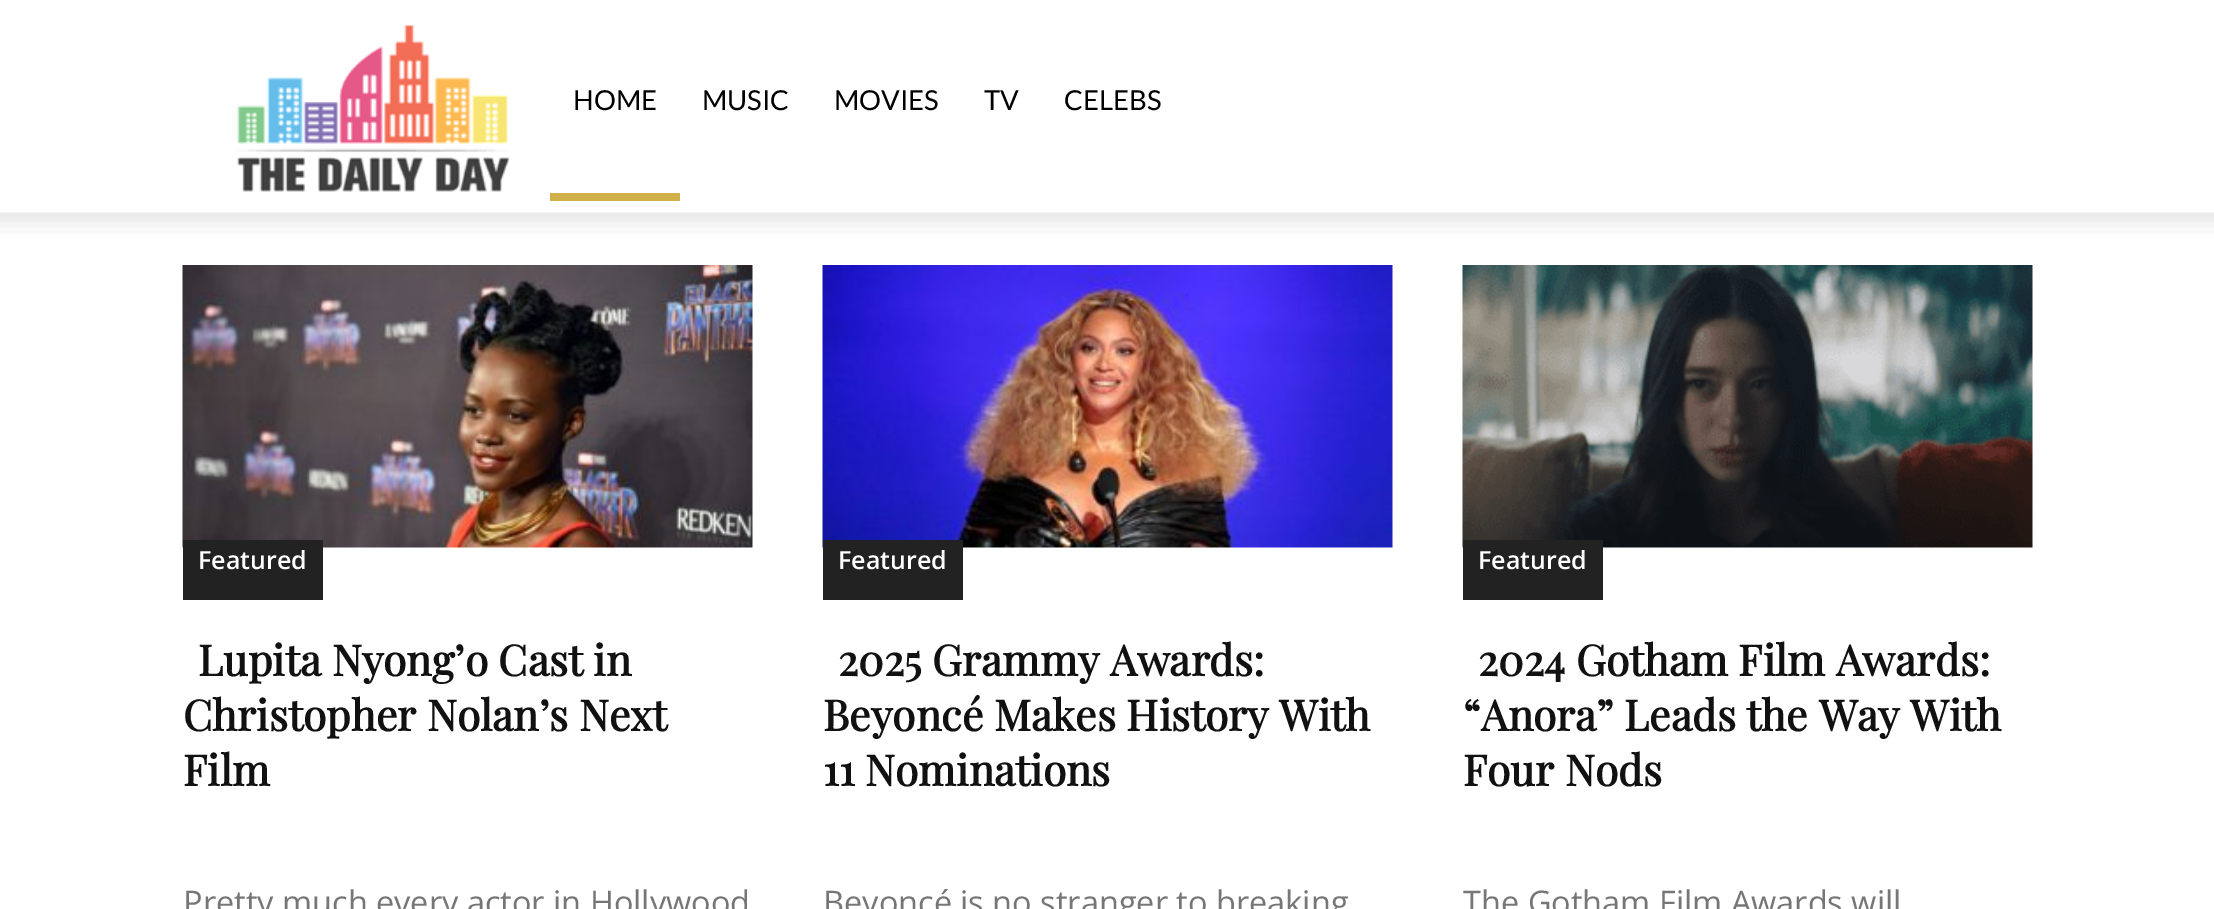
%!PS
<< /PageSize [2214 909] >> setpagedevice
/picture { 5 dict begin { /h /w /y /x /name } { exch def } forall
  gsave x y translate w h scale
  w h 8 [w 0 0 h 0 0] name (r) file false 3 colorimage grestore end } def
0 909 translate 1 -1 scale
4 setmiterlimit
1 setgray
0 0 2214 909 rectfill
(img1.rgb) 237 20 273 172 picture
/Lato-Regular [27.5 0 0 -27.5 0 0] selectfont
0 setgray
573 110 moveto (HOME) show
0.82 0.686 0.286 setrgbcolor
550 193 130 8 rectfill
0 setgray
702 110 moveto (MUSIC) show
834 110 moveto (MOVIES) show
984 110 moveto (TV) show
1064 110 moveto (CELEBS) show
(img2.rgb) 0 212 2214 22 picture
(img3.rgb) 182 265 571 283 picture
0.133 setgray
183 540 140 60 rectfill
/OpenSans-SemiBold [25 0 0 -25 0 0] selectfont
1 setgray
198 569 moveto (Featured) show
/PlayfairDisplay-Bold [42.5 0 0 -42.5 0 0] selectfont
0.067 setgray
198 676 moveto (Lupita Nyong’o Cast in) show
183 731 moveto (Christopher Nolan’s Next) show
183 786 moveto (Film) show
/OpenSans-Regular [32.5 0 0 -32.5 0 0] selectfont
0.463 setgray
183 914 moveto (Pretty much every actor in Hollywood) show
(img4.rgb) 822 265 571 283 picture
0.133 setgray
823 540 140 60 rectfill
/OpenSans-SemiBold [25 0 0 -25 0 0] selectfont
1 setgray
838 569 moveto (Featured) show
/PlayfairDisplay-Bold [42.5 0 0 -42.5 0 0] selectfont
0.067 setgray
838 676 moveto (2025 Grammy Awards:) show
823 731 moveto (Beyoncé Makes History With) show
823 786 moveto (11 Nominations) show
/OpenSans-Regular [32.5 0 0 -32.5 0 0] selectfont
0.463 setgray
823 914 moveto (Beyoncé is no stranger to breaking) show
(img5.rgb) 1462 265 571 283 picture
0.133 setgray
1463 540 140 60 rectfill
/OpenSans-SemiBold [25 0 0 -25 0 0] selectfont
1 setgray
1478 569 moveto (Featured) show
/PlayfairDisplay-Bold [42.5 0 0 -42.5 0 0] selectfont
0.067 setgray
1478 676 moveto (2024 Gotham Film Awards:) show
1463 731 moveto (“Anora” Leads the Way With) show
1463 786 moveto (Four Nods) show
/OpenSans-Regular [32.5 0 0 -32.5 0 0] selectfont
0.463 setgray
1463 914 moveto (The Gotham Film Awards will) show
showpage
